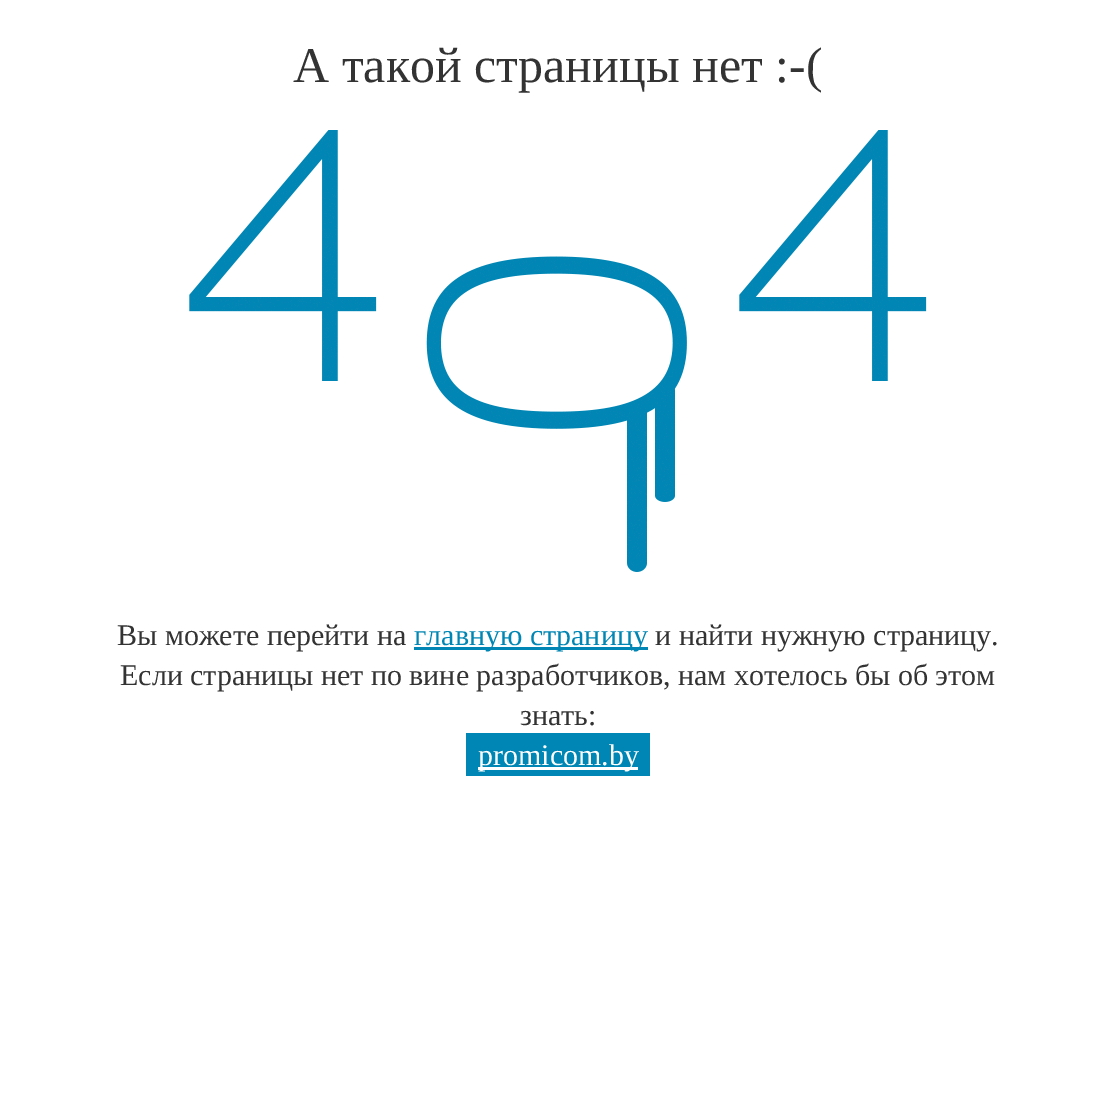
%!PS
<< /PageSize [1116 1114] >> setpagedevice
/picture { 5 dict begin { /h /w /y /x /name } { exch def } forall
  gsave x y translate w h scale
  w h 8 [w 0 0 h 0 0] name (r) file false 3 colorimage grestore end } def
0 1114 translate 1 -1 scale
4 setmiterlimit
1 setgray
0 0 1116 1114 rectfill
/LiberationSerif-Regular [50 0 0 -50 0 0] selectfont
0.2 setgray
293 82 moveto (А такой страницы нет :-\() show
(img1.rgb) 189 130 738 442 picture
/LiberationSerif-Regular [30 0 0 -30 0 0] selectfont
117 645 moveto (Вы можете перейти на) show
0 0.525 0.706 setrgbcolor
414 647 234 3 rectfill
414 645 moveto (главную страницу) show
0.2 setgray
655 645 moveto (и найти нужную страницу.) show
120 685 moveto (Если страницы нет по вине разработчиков, нам хотелось бы об этом) show
520 725 moveto (знать:) show
0 0.525 0.706 setrgbcolor
466 733 184 43 rectfill
1 setgray
478 767 160 3 rectfill
478 765 moveto (promicom.by) show
showpage
